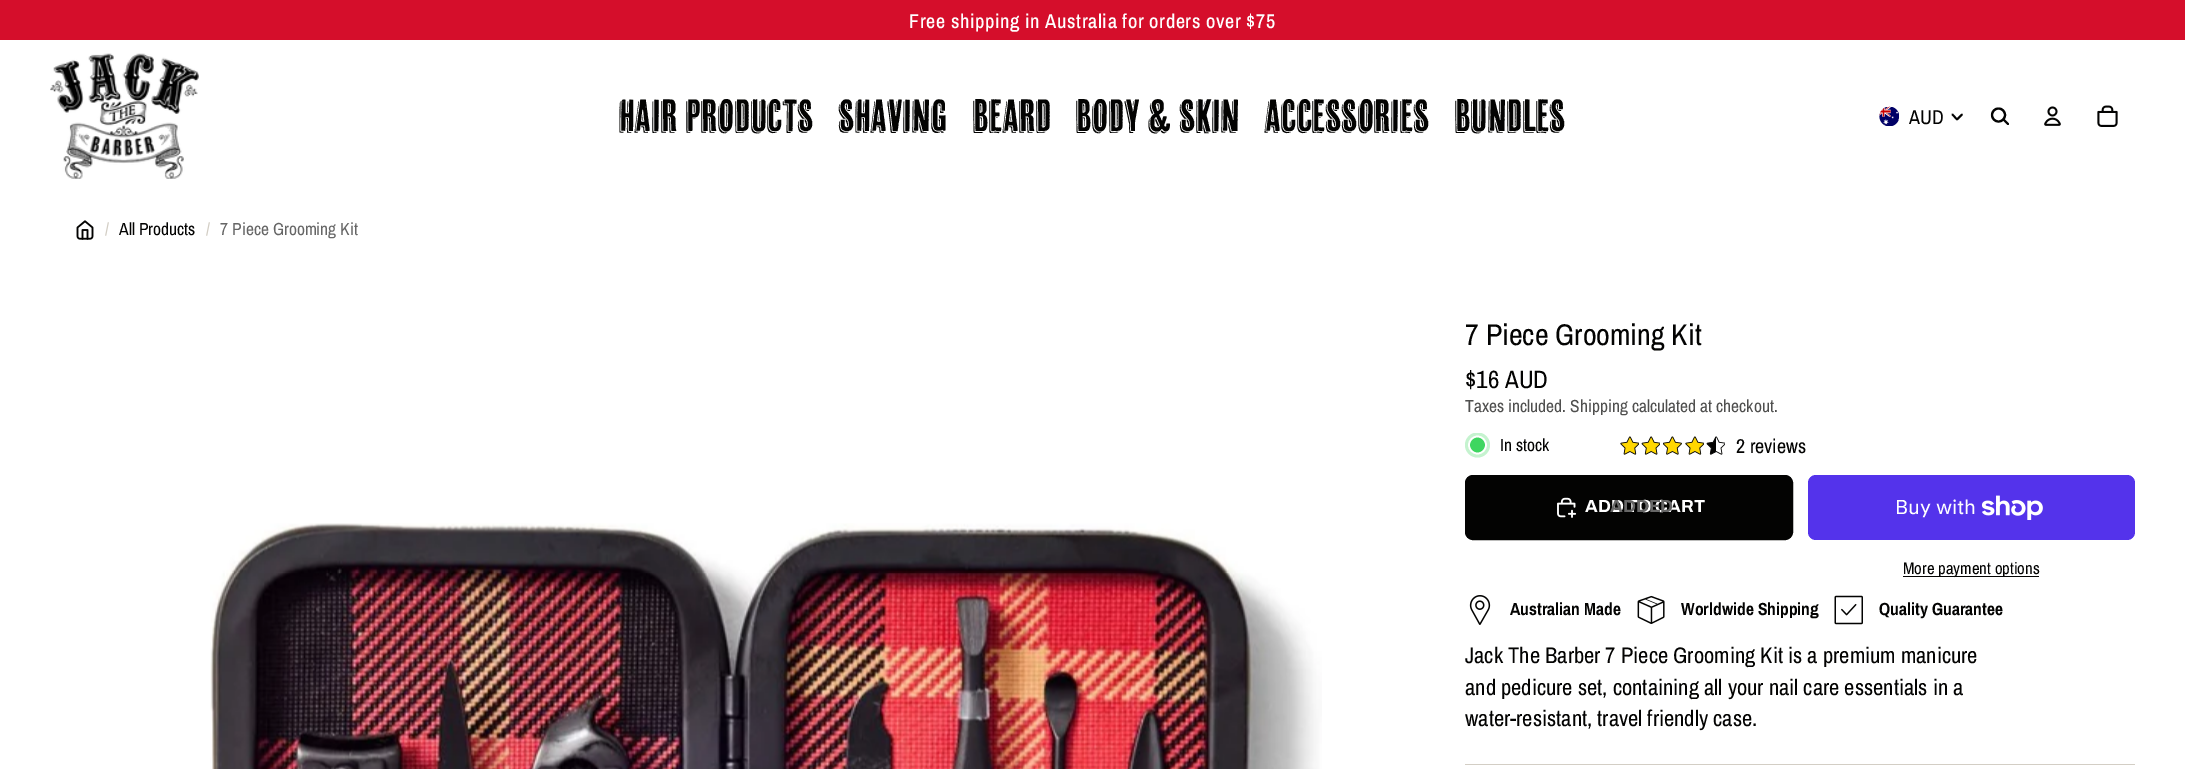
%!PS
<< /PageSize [2185 769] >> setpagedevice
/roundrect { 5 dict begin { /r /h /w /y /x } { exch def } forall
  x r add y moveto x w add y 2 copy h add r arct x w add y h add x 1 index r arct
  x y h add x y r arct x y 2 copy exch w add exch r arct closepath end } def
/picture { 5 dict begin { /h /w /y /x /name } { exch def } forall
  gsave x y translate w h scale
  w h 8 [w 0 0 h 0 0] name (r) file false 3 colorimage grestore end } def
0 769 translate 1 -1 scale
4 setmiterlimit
1 setgray
0 0 2185 769 rectfill
0.835 0.055 0.169 setrgbcolor
0 0 2185 40 rectfill
/ArchivoNarrow-Medium [20 0 0 -20 0 0] selectfont
1 setgray
909 28 moveto 0.6 0 (Free shipping in Australia for orders over $75) ashow
(img1.rgb) 50 53 149 126 picture
/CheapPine-Regular [45 0 0 -45 0 0] selectfont
0.012 0.012 0.008 setrgbcolor
619 131 moveto (HAIR PRODUCTS) show
839 131 moveto (SHAVING) show
973 131 moveto (BEARD) show
1076 131 moveto (BODY & SKIN) show
1265 131 moveto (ACCESSORIES) show
1455 131 moveto (BUNDLES) show
(img2.rgb) 1879 106 20 20 picture
/ArchivoNarrow-Regular [20 0 0 -20 0 0] selectfont
1909 124 moveto (AUD) show
1.8 setlinewidth
1 setlinecap
1 setlinejoin
newpath 1962 114.5 moveto 1957 119.5 lineto 1952.5 114.5 lineto stroke
2.1 setlinewidth
0 setlinecap
0 setlinejoin
newpath 1998.5 115 6.5 0 360 arc closepath stroke
1 setlinecap
1 setlinejoin
newpath 2003.5 119.5 moveto 2008 124 lineto stroke
(img3.rgb) 2044 106 17 20 picture
(img4.rgb) 2097 105 21 22 picture
(img5.rgb) 76 220 18 20 picture
/ArchivoNarrow-Regular [17.5 0 0 -17.5 0 0] selectfont
0.827 0.808 0.773 setrgbcolor
105 235 moveto (/) show
0.012 0.012 0.008 setrgbcolor
119 235 moveto (All Products) show
0.827 0.808 0.773 setrgbcolor
206 235 moveto (/) show
0.4 setgray
220 235 moveto (7 Piece Grooming Kit) show
(img6.rgb) 210 523 1112 246 picture
/ArchivoNarrow-Regular [30 0 0 -30 0 0] selectfont
0.012 0.012 0.008 setrgbcolor
1465 345 moveto (7 Piece Grooming Kit) show
/ArchivoNarrow-Regular [25 0 0 -25 0 0] selectfont
1465 388 moveto ($16 AUD) show
/ArchivoNarrow-Regular [17.5 0 0 -17.5 0 0] selectfont
0.31 0.31 0.306 setrgbcolor
1465 412 moveto (Taxes included. Shipping calculated at checkout.) show
gsave
1465 433 25 25 rectclip
0.773 0.953 0.812 setrgbcolor
newpath 1477.5 445 12.5 0 360 arc closepath fill
grestore
0.243 0.839 0.376 setrgbcolor
newpath 1477.5 445 8.5 0 360 arc closepath gsave fill grestore
1 setgray
1.7 setlinewidth
0 setlinecap
0 setlinejoin
stroke
0.012 0.012 0.008 setrgbcolor
1500 451 moveto (In stock) show
(img7.rgb) 1620 436 19 19 picture
(img8.rgb) 1641 436 19 19 picture
(img9.rgb) 1663 436 19 19 picture
(img7.rgb) 1685 436 19 19 picture
(img10.rgb) 1706 436 19 19 picture
/ArchivoNarrow-Regular [20 0 0 -20 0 0] selectfont
1736 453 moveto (2 reviews) show
1465.5 475.5 327 64 7.5 roundrect gsave fill grestore
1 setlinewidth
stroke
(img11.rgb) 1557 497 20 21 picture
/Archivo-Bold [17.5 0 0 -17.5 0 0] selectfont
1 setgray
1585 512 moveto (ADD TO CART) show
0.4 setgray
1610 512 moveto (ADDED) show
0.329 0.2 0.922 setrgbcolor
1808 475 327 65 8 roundrect fill
/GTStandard-Regular [20 0 0 -20 0 0] selectfont
1 setgray
1895 514 moveto (Buy with) show
(img12.rgb) 1981 495 62 25 picture
0.012 0.012 0.008 setrgbcolor
1903 576 136 1 rectfill
/ArchivoNarrow-Regular [16.75 0 0 -16.75 0 0] selectfont
1903 574 moveto (More payment options) show
(img13.rgb) 1469 595 22 30 picture
/ArchivoNarrow-Bold [17.5 0 0 -17.5 0 0] selectfont
1510 615 moveto (Australian Made) show
(img14.rgb) 1637 595 28 29 picture
1681 615 moveto (Worldwide Shipping) show
(img15.rgb) 1834 595 29 30 picture
1879 615 moveto (Quality Guarantee) show
/ArchivoNarrow-Regular [22.5 0 0 -22.5 0 0] selectfont
1465 663 moveto (Jack The Barber 7 Piece Grooming Kit is a premium manicure) show
1465 695 moveto (and pedicure set, containing all your nail care essentials in a) show
1465 726 moveto (water-resistant, travel friendly case.) show
0.827 0.808 0.773 setrgbcolor
1465 764 670 1 rectfill
showpage
